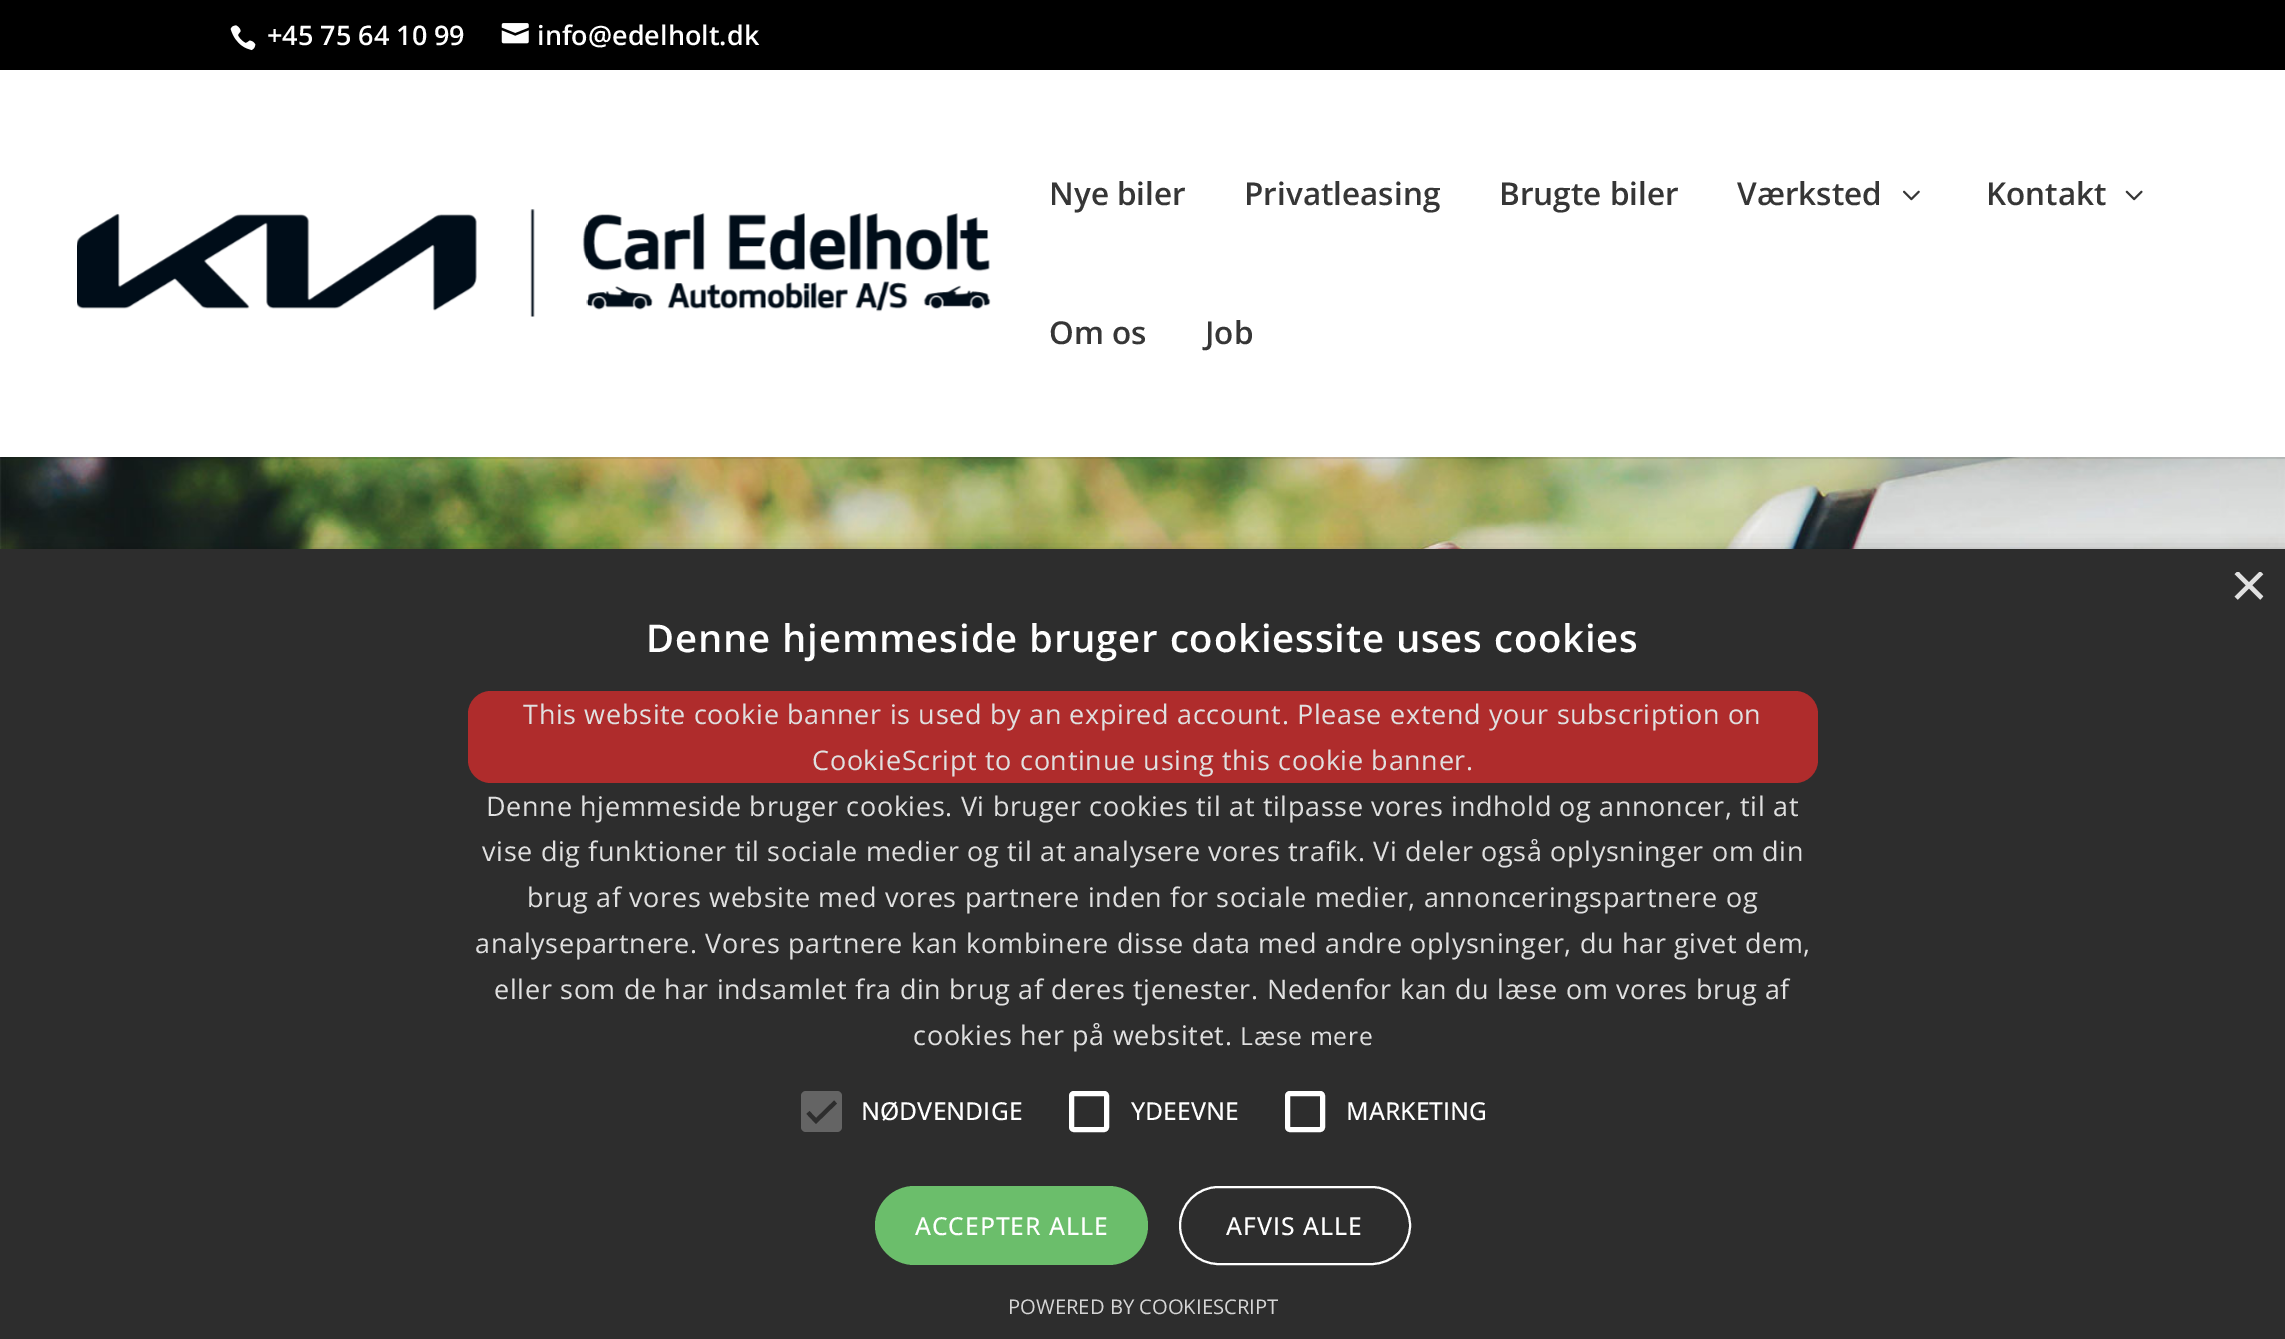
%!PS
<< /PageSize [2285 1339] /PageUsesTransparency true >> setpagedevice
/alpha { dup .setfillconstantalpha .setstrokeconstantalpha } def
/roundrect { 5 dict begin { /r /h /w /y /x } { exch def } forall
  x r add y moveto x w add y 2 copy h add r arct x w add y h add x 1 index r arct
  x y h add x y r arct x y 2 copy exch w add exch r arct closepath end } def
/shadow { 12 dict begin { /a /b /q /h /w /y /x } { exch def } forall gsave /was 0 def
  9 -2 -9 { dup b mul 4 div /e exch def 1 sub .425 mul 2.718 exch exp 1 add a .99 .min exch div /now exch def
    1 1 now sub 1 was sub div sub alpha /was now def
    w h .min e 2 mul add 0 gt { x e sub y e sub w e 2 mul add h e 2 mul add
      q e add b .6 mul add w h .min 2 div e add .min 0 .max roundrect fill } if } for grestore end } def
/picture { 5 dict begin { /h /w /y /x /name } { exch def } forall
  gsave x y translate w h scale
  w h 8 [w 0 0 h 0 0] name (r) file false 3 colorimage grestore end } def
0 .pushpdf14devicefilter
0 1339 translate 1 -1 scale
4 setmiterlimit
0 setgray
0 0 2285 1339 rectfill
(img1.rgb) 230 25 26 26 picture
/OpenSans-SemiBold [27 0 0 -27 0 0] selectfont
1 setgray
267 45 moveto (+45 75 64 10 99) show
(img2.rgb) 501 23 28 21 picture
537 45 moveto (info@edelholt.dk) show
(img6.rgb) 0 457 2285 92 picture
0.1 alpha
0 setgray
0 457 2285 2 rectfill
1 alpha
1 setgray
0 70 2285 387 rectfill
(img3.rgb) 77 209 914 108 picture
/OpenSans-SemiBold [31.5 0 0 -31.5 0 0] selectfont
0.212 setgray
1049 205 moveto (Nye biler) show
1244 205 moveto (Privatleasing) show
1499 205 moveto (Brugte biler) show
1737 205 moveto (Værksted) show
(img4.rgb) 1903 190 17 11 picture
1986 205 moveto (Kontakt) show
(img5.rgb) 2125 190 18 11 picture
1049 344 moveto (Om os) show
1205 344 moveto (Job) show
0 setgray
2 554 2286 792 0 9 0.35 shadow
0.176 setgray
0 549 2285 790 rectfill
gsave
2230 572 34 33 rectclip
/LiberationSans-Regular [65 0 0 -65 0 0] selectfont
0.878 setgray
2230 607 moveto (×) show
grestore
/OpenSans-SemiBold [38.25 0 0 -38.25 0 0] selectfont
1 setgray
646 652 moveto 0.9 0 (Denne hjemmeside bruger cookiessite uses cookies) ashow
0.686 0.173 0.173 setrgbcolor
468 691 1350 92 23 roundrect fill
/OpenSans-Regular [27 0 0 -27 0 0] selectfont
0.878 setgray
523 724 moveto 0.67 0 (This website cookie banner is used by an expired account. Please extend your subscription on) ashow
812 770 moveto 0.67 0 (CookieScript to continue using this cookie banner.) ashow
486 816 moveto 0.67 0 (Denne hjemmeside bruger cookies. Vi bruger cookies til at tilpasse vores indhold og annoncer, til at) ashow
482 861 moveto 0.67 0 (vise dig funktioner til sociale medier og til at analysere vores trafik. Vi deler også oplysninger om din) ashow
527 907 moveto 0.67 0 (brug af vores website med vores partnere inden for sociale medier, annonceringspartnere og) ashow
475 953 moveto 0.67 0 (analysepartnere. Vores partnere kan kombinere disse data med andre oplysninger, du har givet dem,) ashow
494 999 moveto 0.67 0 (eller som de har indsamlet fra din brug af deres tjenester. Nedenfor kan du læse om vores brug af) ashow
913 1045 moveto 0.67 0 (cookies her på websitet.) ashow
/OpenSans-Regular [24.75 0 0 -24.75 0 0] selectfont
1240 1045 moveto 0.67 0 (Læse mere) ashow
0.392 setgray
801 1091 41 41 5 roundrect fill
0.176 setgray
4.1 setlinewidth
newpath 808 1112.5 moveto 816 1121 lineto 835.5 1102 lineto stroke
/OpenSans-Medium [24.75 0 0 -24.75 0 0] selectfont
1 setgray
861 1120 moveto (NØDVENDIGE) show
5 setlinewidth
1071.5 1093.5 35 36 2.5 roundrect stroke
1131 1120 moveto (YDEEVNE) show
1287.5 1093.5 35 36 2.5 roundrect stroke
1346 1120 moveto (MARKETING) show
0.42 0.745 0.42 setrgbcolor
875 1186 273 79 39.5 roundrect fill
1 setgray
915 1235 moveto 0.9 0 (ACCEPTER ALLE) ashow
2 setlinewidth
1180 1187 230 77 38.5 roundrect stroke
1226 1235 moveto 0.9 0 (AFVIS ALLE) ashow
/OpenSans-Regular [20.25 0 0 -20.25 0 0] selectfont
0.835 setgray
1008 1314 moveto (POWERED BY COOKIESCRIPT) show
.poppdf14devicefilter showpage
